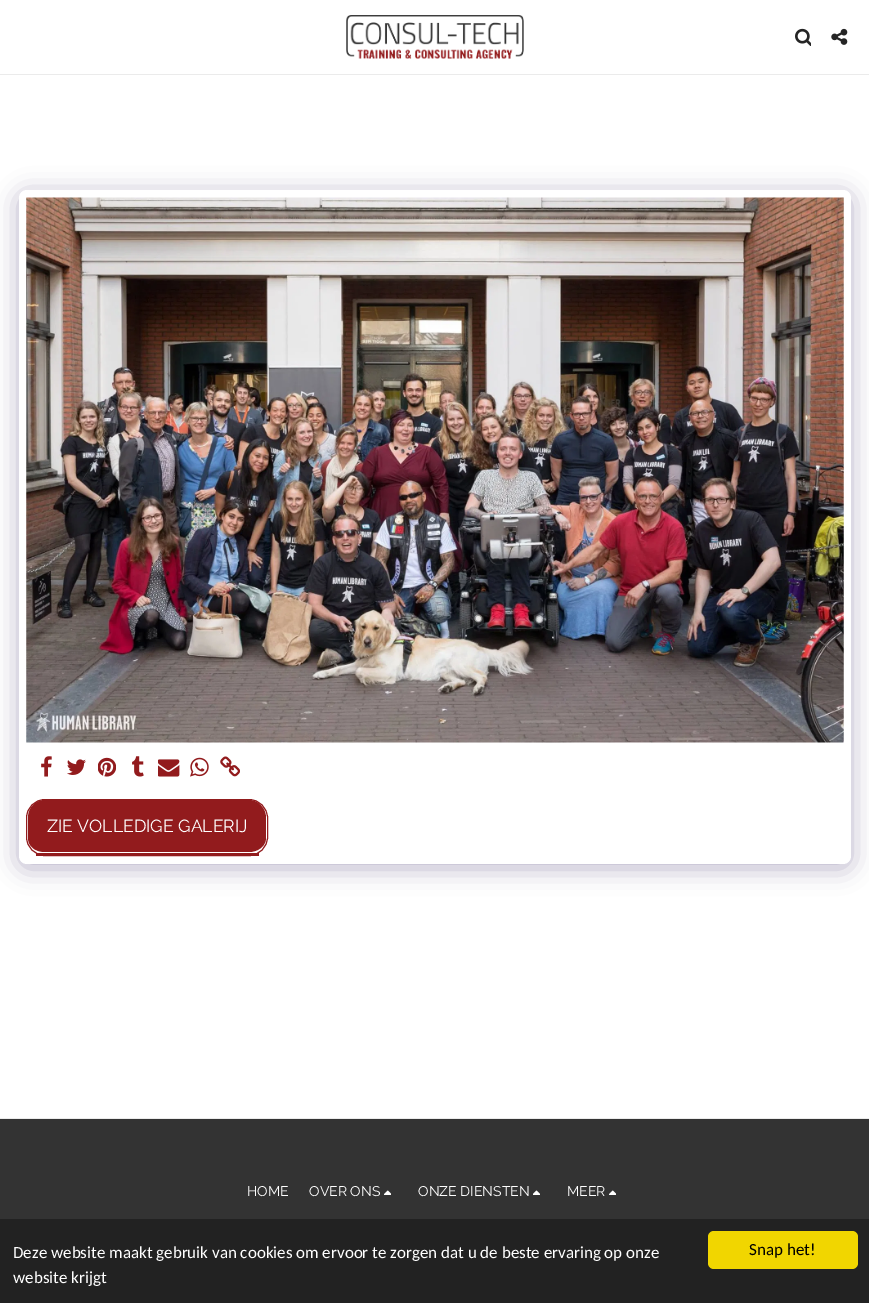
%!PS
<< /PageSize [869 1303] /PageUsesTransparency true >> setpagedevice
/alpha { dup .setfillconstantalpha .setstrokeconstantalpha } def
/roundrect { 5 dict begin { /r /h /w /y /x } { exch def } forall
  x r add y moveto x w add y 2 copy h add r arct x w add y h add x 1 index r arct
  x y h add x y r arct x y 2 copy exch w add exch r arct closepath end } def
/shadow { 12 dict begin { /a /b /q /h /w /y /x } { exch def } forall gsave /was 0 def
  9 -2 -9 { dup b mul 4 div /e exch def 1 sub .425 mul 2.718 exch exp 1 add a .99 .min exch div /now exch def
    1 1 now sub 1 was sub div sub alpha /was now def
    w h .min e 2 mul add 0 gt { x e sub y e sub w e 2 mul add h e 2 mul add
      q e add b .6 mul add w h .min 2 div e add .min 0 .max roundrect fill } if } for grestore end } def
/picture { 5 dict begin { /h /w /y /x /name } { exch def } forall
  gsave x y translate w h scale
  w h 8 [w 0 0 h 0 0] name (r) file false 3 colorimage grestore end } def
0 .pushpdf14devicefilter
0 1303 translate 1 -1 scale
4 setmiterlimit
1 setgray
0 0 869 1303 rectfill
0.922 setgray
0 74 869 1 rectfill
(img1.rgb) 346 15 178 44 picture
(img2.rgb) 795 28 16 18 picture
(img3.rgb) 831 28 17 17 picture
0.302 0.247 0.478 setrgbcolor
19 194 832 674 8 12.5 0.4 shadow
1 setgray
19 190 832 674 8 roundrect fill
(img4.rgb) 26 197 818 546 picture
(img5.rgb) 41 756 11 21 picture
(img6.rgb) 67 759 19 16 picture
(img7.rgb) 98 757 18 20 picture
(img8.rgb) 132 756 12 21 picture
(img9.rgb) 158 759 22 18 picture
(img10.rgb) 190 757 19 20 picture
(img11.rgb) 220 756 20 21 picture
0.573 0.106 0.114 setrgbcolor
newpath 45 800 moveto 249 800 lineto 258 800 266 808 266 818 curveto 266 838 lineto 266 846 258 852 249 852 curveto 45 852 lineto 35 852 28 846 28 838 curveto 28 818 lineto 28 808 35 800 45 800 curveto closepath fill
26.5 799.5 241 56 18.5 roundrect stroke
36 853 223 3 rectfill
/Raleway-Regular [17.5 0 0 -17.5 0 0] selectfont
1 setgray
47 832 moveto (ZIE VOLLEDIGE GALERIJ) show
0.2 setgray
0 1119 869 100 rectfill
0.922 setgray
0 1118 869 1 rectfill
/Raleway-Regular [14 0 0 -14 0 0] selectfont
1 setgray
247 1196 moveto (HOME) show
309 1196 moveto (OVER ONS) show
(img12.rgb) 384 1190 7 5 picture
418 1196 moveto (ONZE DIENSTEN) show
(img13.rgb) 533 1190 7 5 picture
567 1196 moveto (MEER) show
(img12.rgb) 609 1190 7 5 picture
0.133 setgray
0 1219 869 84 rectfill
/Carlito-Regular [17 0 0 -17 0 0] selectfont
1 setgray
13 1258 moveto (Deze website maakt gebruik van cookies om ervoor te zorgen dat u de beste ervaring op onze) show
13 1283 moveto (website krijgt) show
0.945 0.839 0 setrgbcolor
708 1231 150 38 6 roundrect fill
0 setgray
749 1255 moveto (Snap het!) show
.poppdf14devicefilter showpage
